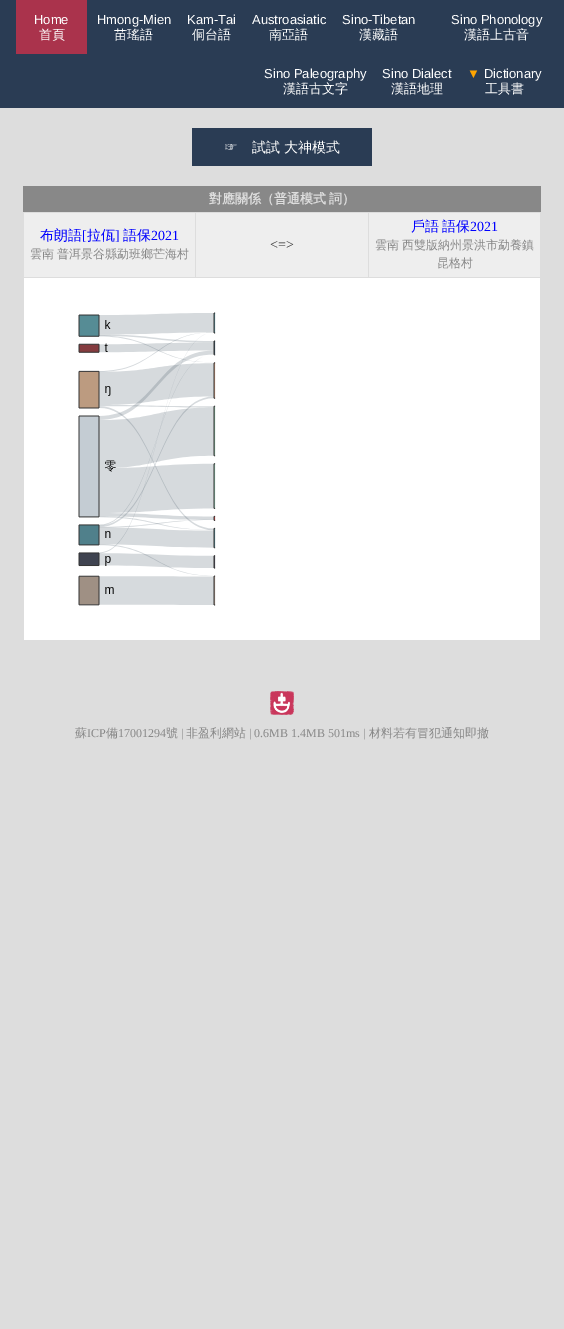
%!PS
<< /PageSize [564 1329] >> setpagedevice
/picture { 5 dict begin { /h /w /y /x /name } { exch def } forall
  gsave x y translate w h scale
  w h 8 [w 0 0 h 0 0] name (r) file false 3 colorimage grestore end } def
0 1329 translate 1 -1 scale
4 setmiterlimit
0.867 setgray
0 0 564 1329 rectfill
0.165 0.235 0.329 setrgbcolor
0 0 564 108 rectfill
0.667 0.2 0.298 setrgbcolor
16 0 71 54 rectfill
/LiberationSans-Regular [13 0 0 -13 0 0] selectfont
1 setgray
34 24 moveto (Home) show
/WenQuanYiZenHei-Medium [13 0 0 -13 0 0] selectfont
39 39 moveto (首頁) show
/LiberationSans-Regular [13 0 0 -13 0 0] selectfont
97 24 moveto (Hmong-Mien) show
/WenQuanYiZenHei-Medium [13 0 0 -13 0 0] selectfont
114 39 moveto (苗瑤語) show
/LiberationSans-Regular [13 0 0 -13 0 0] selectfont
187 24 moveto (Kam-Tai) show
/WenQuanYiZenHei-Medium [13 0 0 -13 0 0] selectfont
192 39 moveto (侗台語) show
/LiberationSans-Regular [13 0 0 -13 0 0] selectfont
252 24 moveto (Austroasiatic) show
/WenQuanYiZenHei-Medium [13 0 0 -13 0 0] selectfont
269 39 moveto (南亞語) show
/LiberationSans-Regular [13 0 0 -13 0 0] selectfont
342 24 moveto (Sino-Tibetan) show
/WenQuanYiZenHei-Medium [13 0 0 -13 0 0] selectfont
359 39 moveto (漢藏語) show
/LiberationSans-Regular [13 0 0 -13 0 0] selectfont
451 24 moveto (Sino Phonology) show
/WenQuanYiZenHei-Medium [13 0 0 -13 0 0] selectfont
464 39 moveto (漢語上古音) show
/LiberationSans-Regular [13 0 0 -13 0 0] selectfont
264 78 moveto (Sino Paleography) show
/WenQuanYiZenHei-Medium [13 0 0 -13 0 0] selectfont
283 93 moveto (漢語古文字) show
/LiberationSans-Regular [13 0 0 -13 0 0] selectfont
382 78 moveto (Sino Dialect) show
/WenQuanYiZenHei-Medium [13 0 0 -13 0 0] selectfont
391 93 moveto (漢語地理) show
/LiberationSans-Regular [13 0 0 -13 0 0] selectfont
1 0.647 0 setrgbcolor
467 78 moveto (▼) show
1 setgray
484 78 moveto (Dictionary) show
/WenQuanYiZenHei-Medium [13 0 0 -13 0 0] selectfont
485 93 moveto (工具書) show
0.165 0.235 0.329 setrgbcolor
192 128 180 38 rectfill
/WenQuanYiZenHei-Medium [14 0 0 -14 0 0] selectfont
1 setgray
224 152 moveto (☞　試試 大神模式) show
0.533 setgray
23 186 518 26 rectfill
/WenQuanYiZenHei-Bold [13 0 0 -13 0 0] selectfont
0.867 setgray
209 203 moveto -1 0 32 (對應關係（普通模式 詞）) widthshow
0.933 setgray
24 213 171 64 rectfill
/WenQuanYiZenHei-Medium [14 0 0 -14 0 0] selectfont
0 0 1 setrgbcolor
40 240 moveto (布朗語) show
/LiberationSerif-Regular [14 0 0 -14 0 0] selectfont
82 240 moveto ([) show
/WenQuanYiZenHei-Medium [14 0 0 -14 0 0] selectfont
87 240 moveto (拉佤) show
/LiberationSerif-Regular [14 0 0 -14 0 0] selectfont
115 240 moveto (]) show
/WenQuanYiZenHei-Medium [14 0 0 -14 0 0] selectfont
123 240 moveto (語保) show
/LiberationSerif-Regular [14 0 0 -14 0 0] selectfont
151 240 moveto (2021) show
/WenQuanYiZenHei-Medium [12 0 0 -12 0 0] selectfont
0.533 setgray
30 258 moveto -1 0 32 (雲南 普洱景谷縣勐班鄉芒海村) widthshow
0.933 setgray
196 213 172 64 rectfill
/LiberationSerif-Regular [14 0 0 -14 0 0] selectfont
0.2 setgray
270 249 moveto (<=>) show
0.933 setgray
369 213 171 64 rectfill
/WenQuanYiZenHei-Medium [14 0 0 -14 0 0] selectfont
0 0 1 setrgbcolor
411 231 moveto -1 0 32 (戶語 語保) widthshow
/LiberationSerif-Regular [14 0 0 -14 0 0] selectfont
470 231 moveto (2021) show
/WenQuanYiZenHei-Medium [12 0 0 -12 0 0] selectfont
0.533 setgray
375 249 moveto -1 0 32 (雲南 西雙版納州景洪市勐養鎮) widthshow
437 267 moveto (昆格村) show
1 setgray
24 278 516 362 rectfill
(img1.rgb) 78 312 138 294 picture
(img2.rgb) 270 691 24 24 picture
0.533 setgray
75 737 moveto (蘇) show
/LiberationSerif-Regular [12 0 0 -12 0 0] selectfont
87 737 moveto (ICP) show
/WenQuanYiZenHei-Medium [12 0 0 -12 0 0] selectfont
106 737 moveto (備) show
/LiberationSerif-Regular [12 0 0 -12 0 0] selectfont
118 737 moveto (17001294) show
/WenQuanYiZenHei-Medium [12 0 0 -12 0 0] selectfont
166 737 moveto (號) show
/LiberationSerif-Regular [12 0 0 -12 0 0] selectfont
181 737 moveto (|) show
/WenQuanYiZenHei-Medium [12 0 0 -12 0 0] selectfont
186 737 moveto (非盈利網站) show
/LiberationSerif-Regular [12 0 0 -12 0 0] selectfont
249 737 moveto (| 0.6MB 1.4MB 501ms |) show
/WenQuanYiZenHei-Medium [12 0 0 -12 0 0] selectfont
369 737 moveto (材料若有冒犯通知即撤) show
showpage
